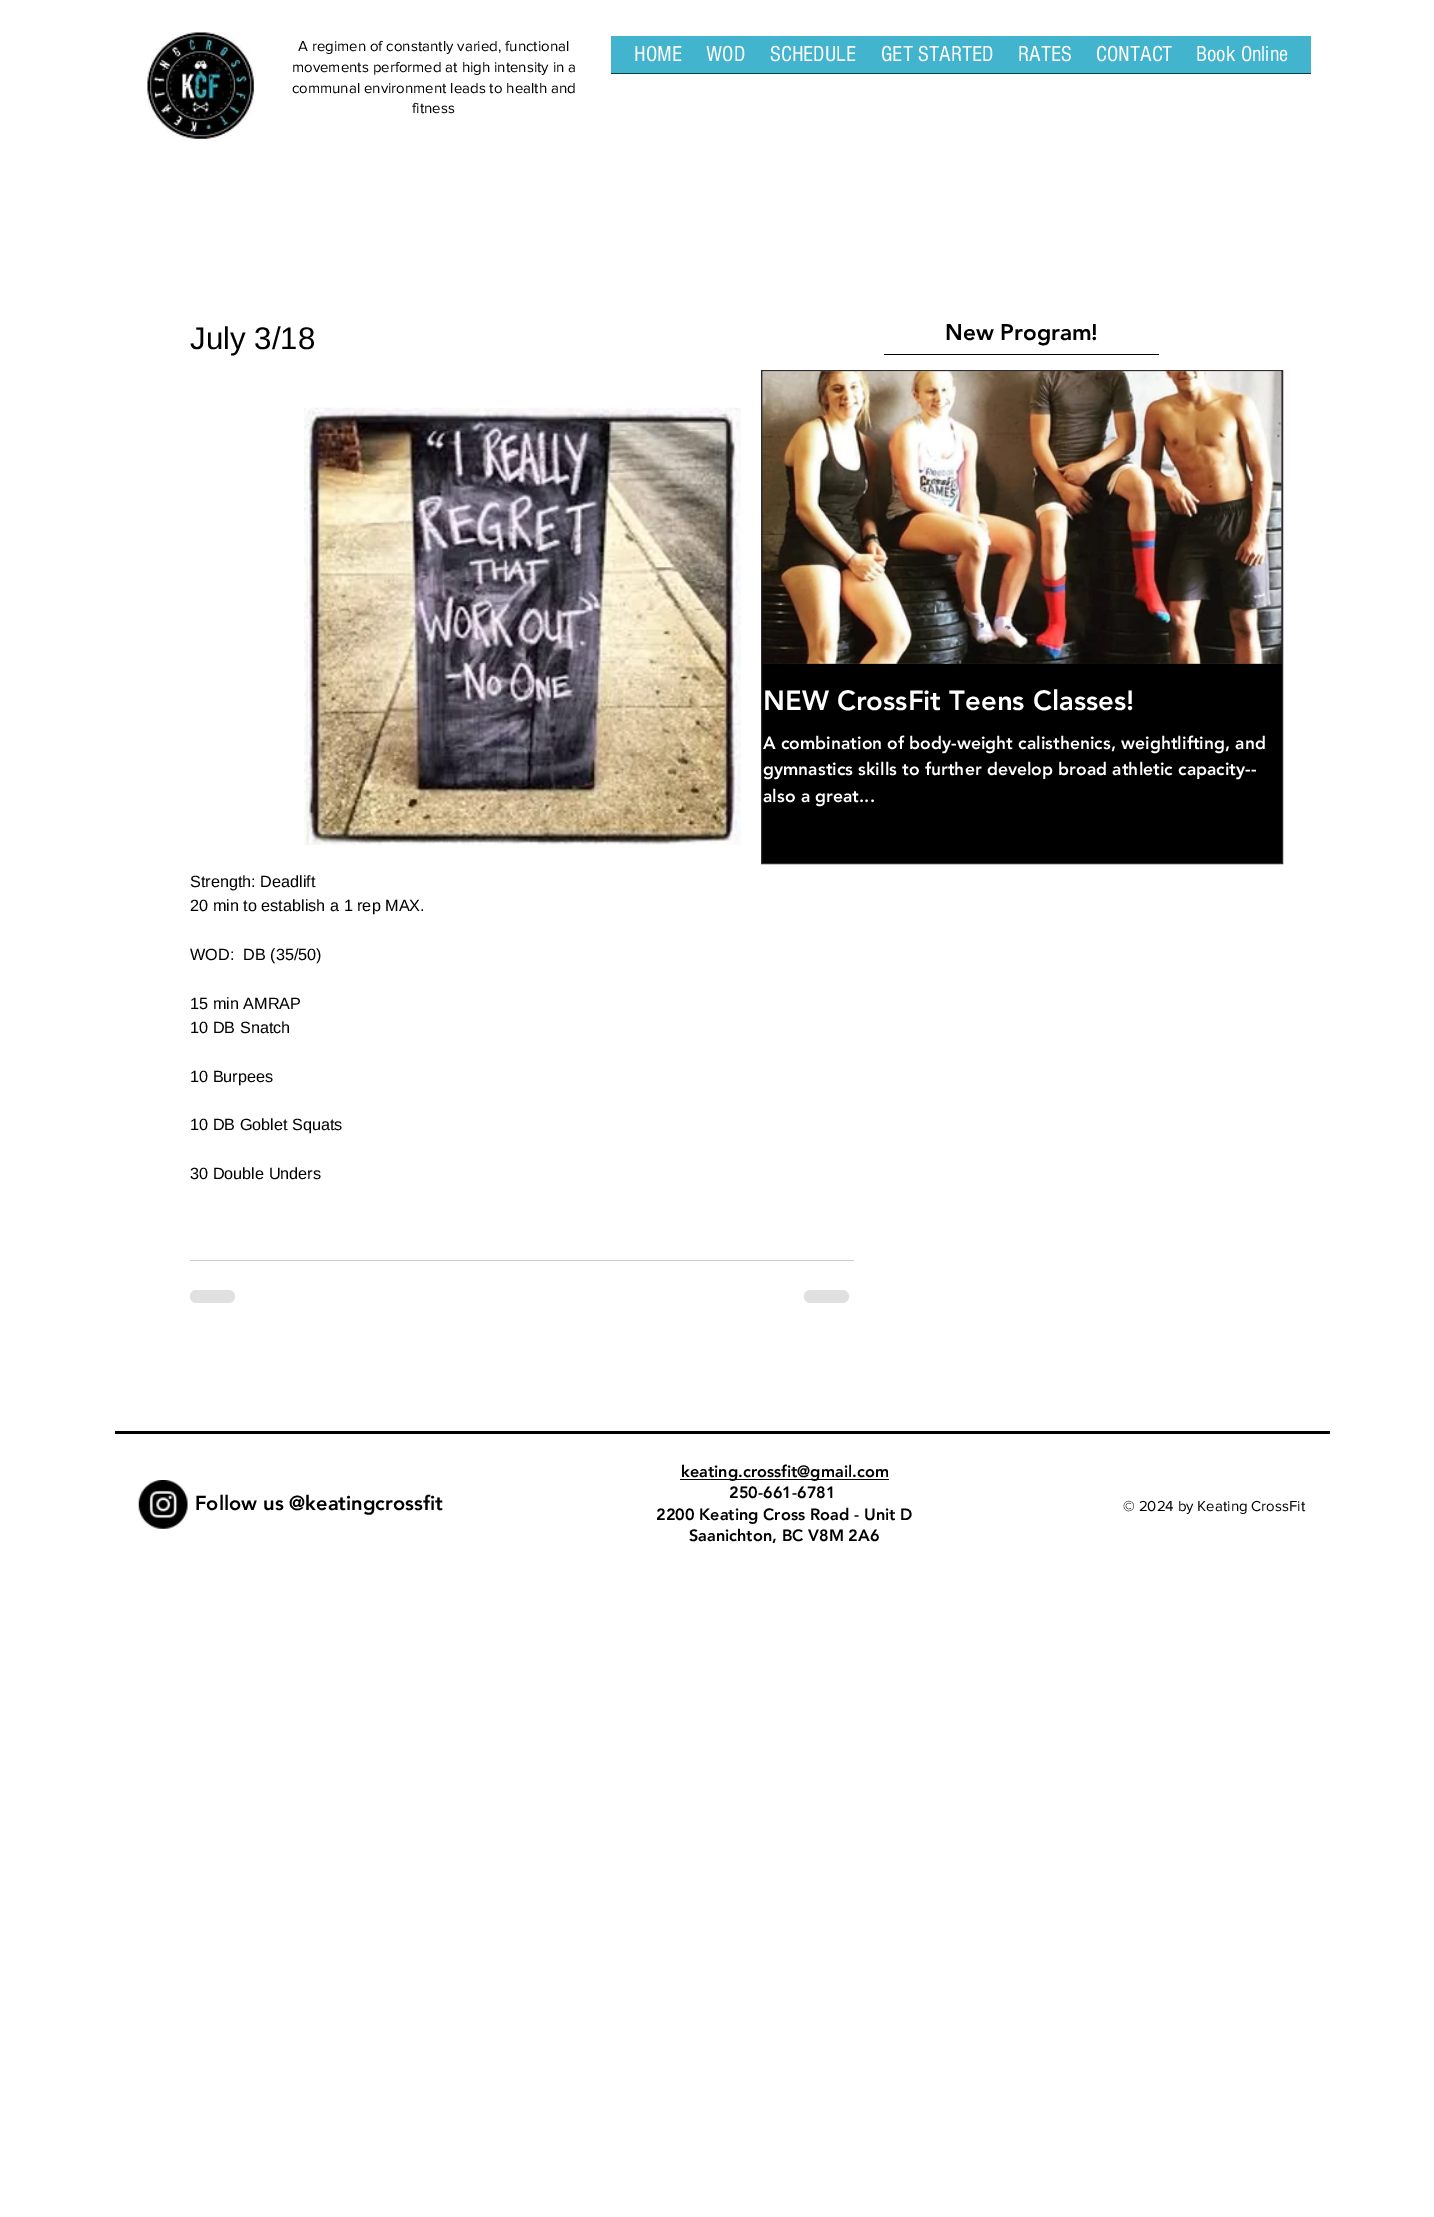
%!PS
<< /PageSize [1434 2217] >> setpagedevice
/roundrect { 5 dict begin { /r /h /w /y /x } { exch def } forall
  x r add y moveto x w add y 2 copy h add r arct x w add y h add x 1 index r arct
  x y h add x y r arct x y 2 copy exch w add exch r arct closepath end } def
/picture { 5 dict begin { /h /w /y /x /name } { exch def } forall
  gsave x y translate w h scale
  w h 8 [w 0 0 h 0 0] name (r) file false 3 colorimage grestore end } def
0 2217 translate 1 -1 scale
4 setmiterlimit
1 setgray
0 0 1434 2217 rectfill
(img1.rgb) 147 32 109 109 picture
/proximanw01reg-Regular [15 0 0 -15 0 0] selectfont
0 setgray
298 51 moveto (A regimen of constantly varied, functional) show
292 72 moveto (movements performed at high intensity in a) show
292 93 moveto (communal environment leads to health and) show
412 113 moveto (fitness) show
0.263 0.706 0.804 setrgbcolor
611 36 700 37 rectfill
0 0.247 0.267 setrgbcolor
611 73 700 1 rectfill
/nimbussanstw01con-Regular [22.5 0 0 -22.5 0 0] selectfont
1 setgray
634 61 moveto (HOME) show
706 61 moveto (WOD) show
770 61 moveto (SCHEDULE) show
881 61 moveto (GET STARTED) show
1018 61 moveto (RATES) show
1096 61 moveto (CONTACT) show
1196 61 moveto (Book Online) show
/LiberationSans-Regular [31.25 0 0 -31.25 0 0] selectfont
0 setgray
190 349 moveto (July 3/18) show
(img2.rgb) 304 407 437 438 picture
/LiberationSans-Regular [16.25 0 0 -16.25 0 0] selectfont
190 887 moveto (Strength: Deadlift) show
190 911 moveto (20 min to establish a 1 rep MAX.) show
190 960 moveto (WOD:  DB \(35/50\)) show
190 1009 moveto (15 min AMRAP) show
190 1033 moveto (10 DB Snatch) show
190 1082 moveto (10 Burpees) show
190 1130 moveto (10 DB Goblet Squats) show
190 1179 moveto (30 Double Unders) show
0.8 setgray
190 1260 664 1 rectfill
0.878 setgray
190 1290 45 13 6.5 roundrect fill
804 1290 45 13 6.5 roundrect fill
/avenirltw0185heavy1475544-Black [22.5 0 0 -22.5 0 0] selectfont
0 setgray
945 340 moveto (New Program!) show
884 354 275 1 rectfill
newpath 761.5 370.5 moveto 1282.5 370.5 lineto 1282.5 863.5 lineto 761.5 863.5 lineto closepath gsave fill grestore
0.188 0.165 0.192 setrgbcolor
stroke
(img3.rgb) 762 371 520 293 picture
(img4.rgb) 762 371 520 293 picture
/avenirltw0185heavy1475544-Black [27.5 0 0 -27.5 0 0] selectfont
1 setgray
763 710 moveto (NEW CrossFit Teens Classes!) show
/avenirltw0185heavy1475544-Black [17.5 0 0 -17.5 0 0] selectfont
763 749 moveto (A combination of body-weight calisthenics, weightlifting, and) show
763 775 moveto (gymnastics skills to further develop broad athletic capacity--) show
763 802 moveto (also a great...) show
0 setgray
115 1431 1215 3 rectfill
(img5.rgb) 138 1480 50 49 picture
/avenirltw0185heavy1475544-Black [20 0 0 -20 0 0] selectfont
195 1510 moveto (Follow us @keatingcrossfit) show
680 1479 209 1 rectfill
/avenirltw0185heavy1475544-Black [16.25 0 0 -16.25 0 0] selectfont
681 1477 moveto (keating.crossfit@gmail.com) show
729 1498 moveto (250-661-6781) show
656 1520 moveto (2200 Keating Cross Road - Unit D) show
689 1541 moveto (Saanichton, BC V8M 2A6) show
/proximanw01reg-Regular [15 0 0 -15 0 0] selectfont
1123 1511 moveto (© 2024 by Keating CrossFit) show
showpage
